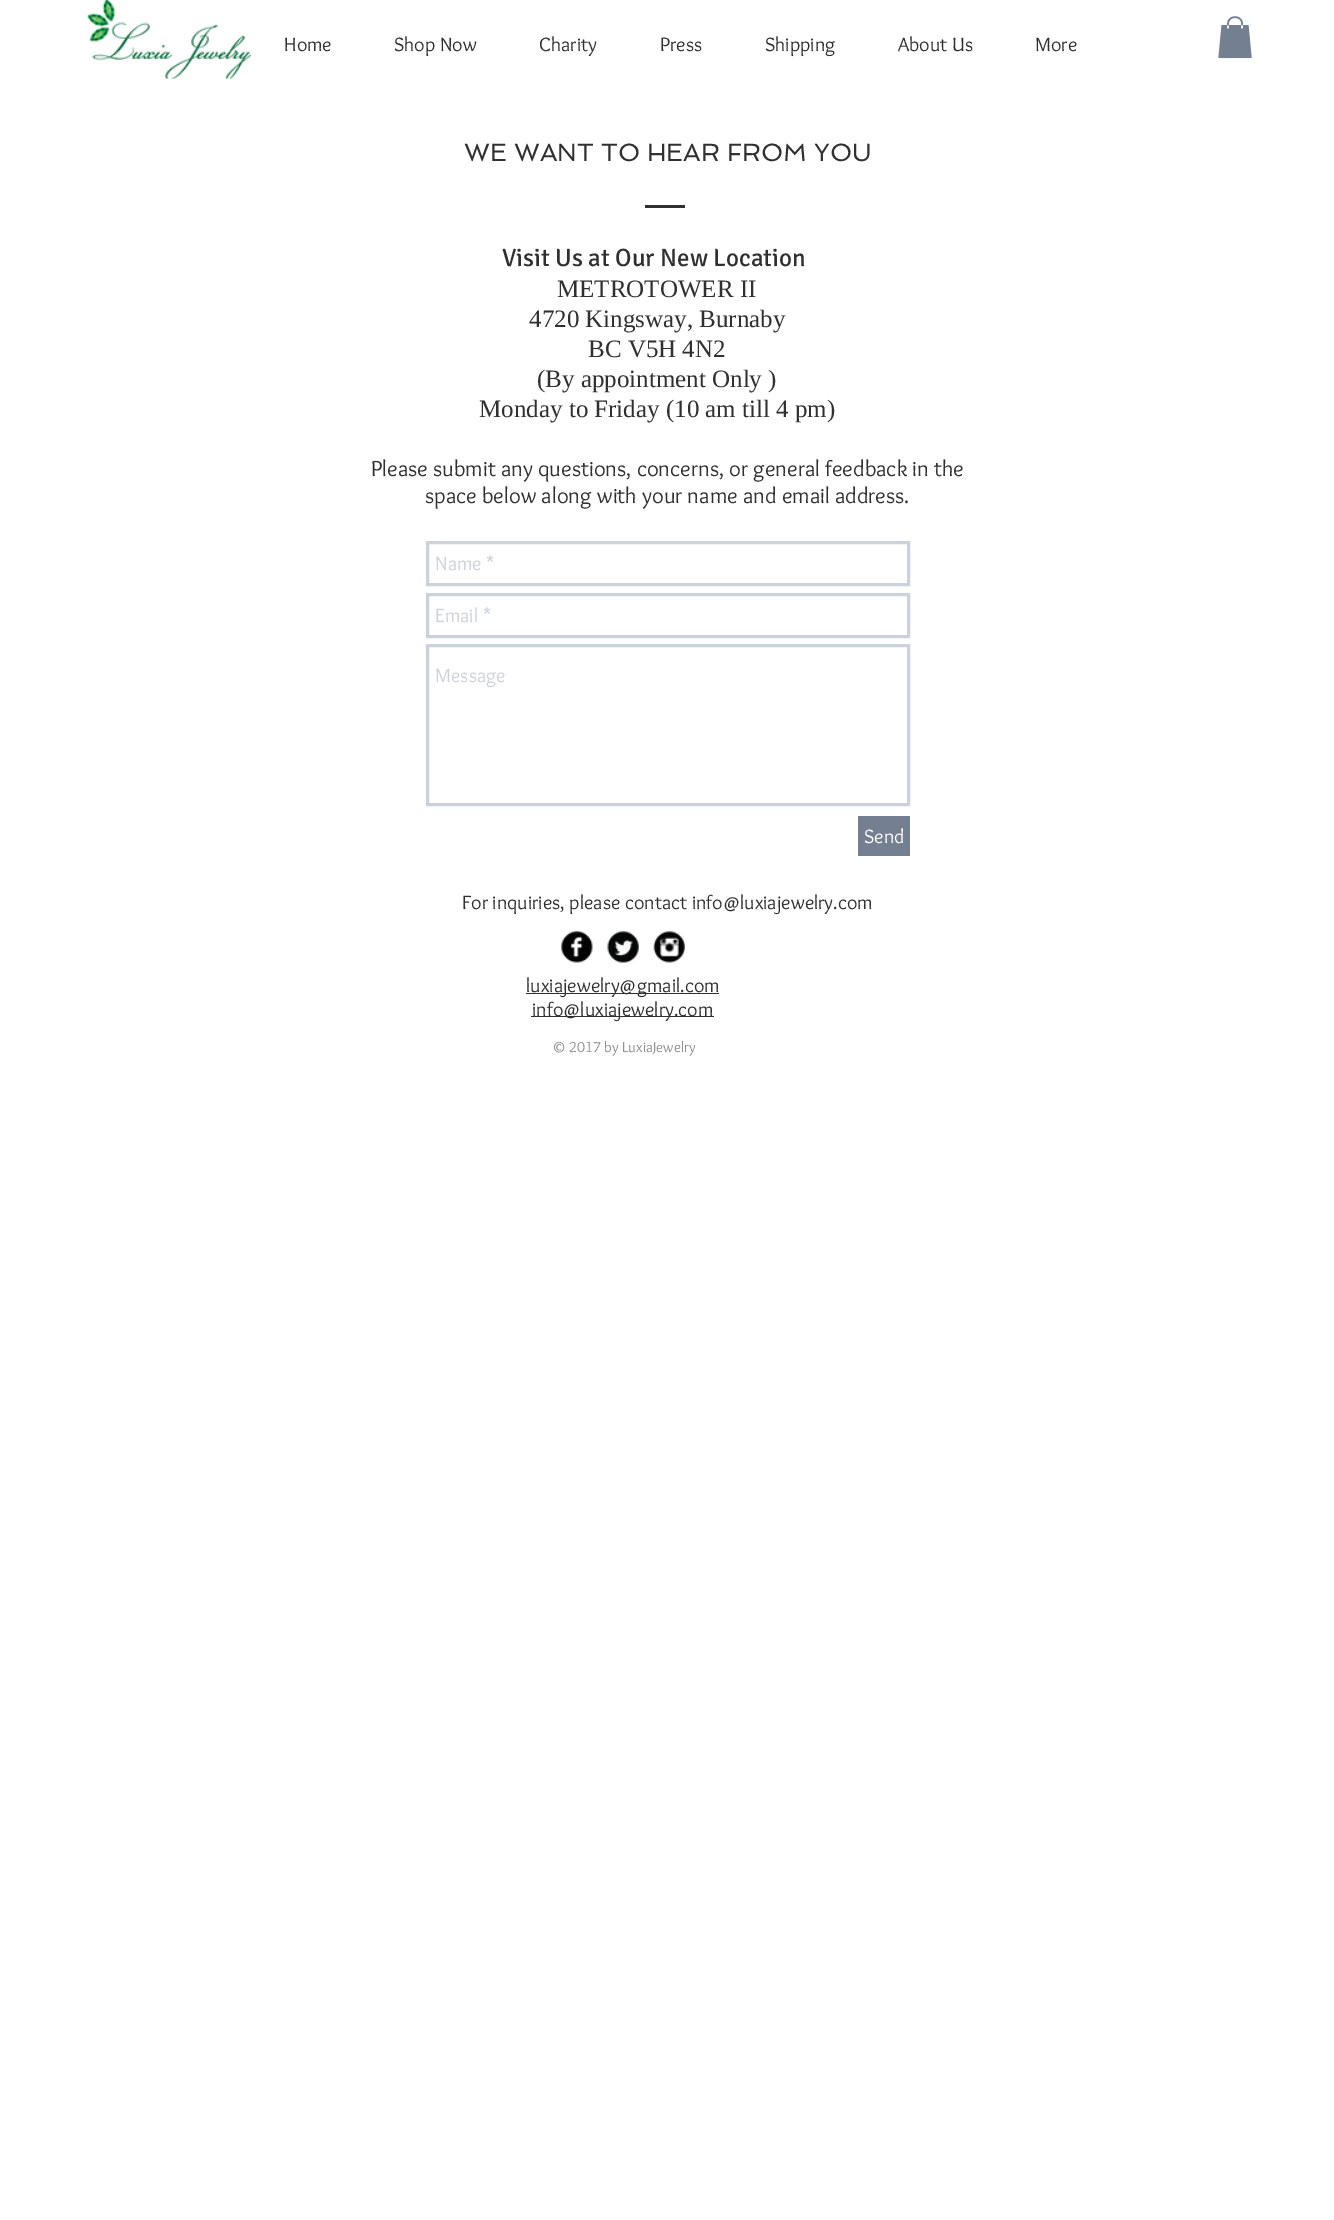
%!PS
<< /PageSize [1334 2220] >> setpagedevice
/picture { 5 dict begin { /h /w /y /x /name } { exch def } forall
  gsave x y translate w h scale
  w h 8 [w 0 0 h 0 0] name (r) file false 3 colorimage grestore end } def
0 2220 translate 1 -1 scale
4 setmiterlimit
1 setgray
0 0 1334 2220 rectfill
(img1.rgb) 87 0 165 79 picture
/Overlock-Regular [20 0 0 -20 0 0] selectfont
0.188 setgray
284 51 moveto (Home) show
394 51 moveto (Shop Now) show
539 51 moveto (Charity) show
660 51 moveto (Press) show
765 51 moveto (Shipping) show
898 51 moveto (About Us) show
1035 51 moveto (More) show
(img2.rgb) 1218 16 34 43 picture
/Spinnaker-Regular [25 0 0 -25 0 0] selectfont
464 161 moveto (WE WANT TO HEAR FROM YOU) show
645 205 40 3 rectfill
/Signika-Regular [25 0 0 -25 0 0] selectfont
502 266 moveto (Visit Us at Our New Location) show
/LiberationSerif-Regular [25 0 0 -25 0 0] selectfont
557 297 moveto (METROTOWER II) show
529 327 moveto (4720 Kingsway, Burnaby) show
588 357 moveto (BC V5H 4N2) show
537 387 moveto (\(By appointment Only \)) show
479 417 moveto (Monday to Friday \(10 am till 4 pm\)) show
/Overlock-Regular [22.5 0 0 -22.5 0 0] selectfont
371 476 moveto (Please submit any questions, concerns, or general feedback in the) show
425 503 moveto (space below along with your name and email address.) show
0.8 0.824 0.859 setrgbcolor
3 setlinewidth
427.5 542.5 481 42 rectstroke
/Overlock-Regular [20 0 0 -20 0 0] selectfont
435 570 moveto (Name *) show
427.5 594.5 481 42 rectstroke
435 622 moveto (Email *) show
427.5 645.5 481 159 rectstroke
435 682 moveto (Message) show
0.455 0.502 0.573 setrgbcolor
858 816 52 40 rectfill
1 setgray
864 843 moveto (Send) show
0.188 setgray
462 909 moveto (For inquiries, please contact info@luxiajewelry.com) show
(img3.rgb) 561 931 32 32 picture
(img4.rgb) 607 931 32 32 picture
(img5.rgb) 653 931 32 32 picture
526 993 193 1 rectfill
526 992 moveto (luxiajewelry@gmail.com) show
531 1016 183 1 rectfill
532 1016 moveto (info@luxiajewelry.com) show
/Overlock-Regular [15 0 0 -15 0 0] selectfont
0.561 setgray
552 1052 moveto (© 2017 by LuxiaJewelry) show
showpage
